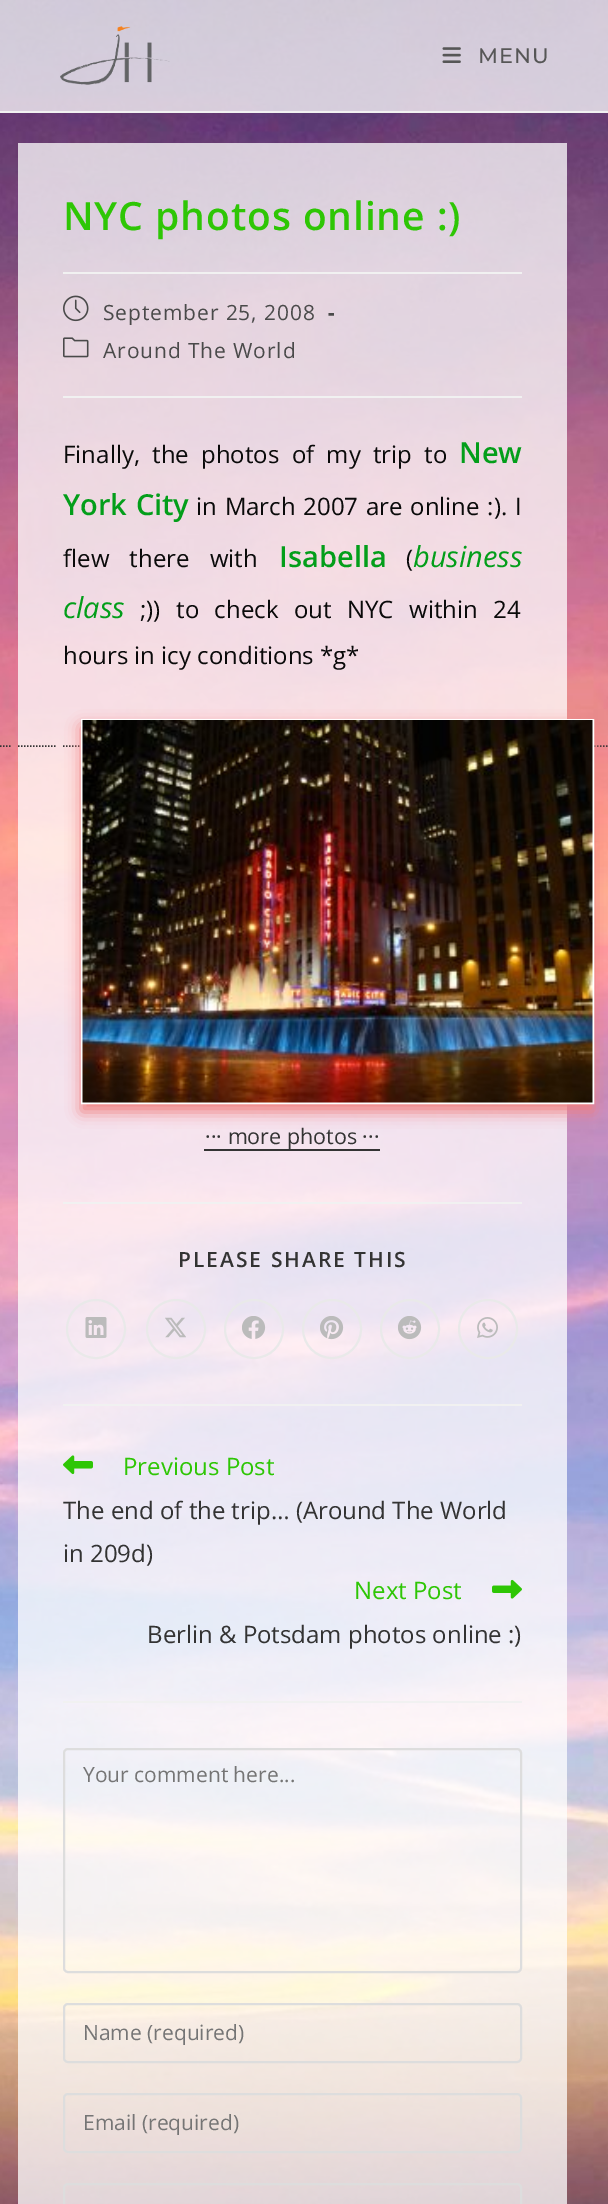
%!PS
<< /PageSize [608 2204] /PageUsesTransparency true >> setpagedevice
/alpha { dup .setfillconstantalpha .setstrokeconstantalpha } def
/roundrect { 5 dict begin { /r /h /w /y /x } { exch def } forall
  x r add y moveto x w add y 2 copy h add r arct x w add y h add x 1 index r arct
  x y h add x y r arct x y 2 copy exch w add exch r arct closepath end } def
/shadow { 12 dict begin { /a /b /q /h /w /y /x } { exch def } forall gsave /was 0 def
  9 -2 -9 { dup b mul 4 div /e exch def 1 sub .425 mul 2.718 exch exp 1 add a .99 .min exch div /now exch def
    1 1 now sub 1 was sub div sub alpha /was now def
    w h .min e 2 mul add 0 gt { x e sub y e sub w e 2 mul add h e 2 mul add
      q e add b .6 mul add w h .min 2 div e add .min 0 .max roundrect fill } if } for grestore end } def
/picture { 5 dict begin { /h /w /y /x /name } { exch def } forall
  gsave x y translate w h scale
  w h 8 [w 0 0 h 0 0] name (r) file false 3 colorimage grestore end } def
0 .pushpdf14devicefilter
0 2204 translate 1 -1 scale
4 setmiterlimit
1 setgray
0 0 608 2204 rectfill
(img1.rgb) 0 0 608 2204 picture
0.75 alpha
0 0 608 111 rectfill
1 alpha
0.945 setgray
0 111 608 2 rectfill
(img2.rgb) 60 26 110 59 picture
(img3.rgb) 442 47 19 16 picture
/Montserrat-Thin [21 0 0 -21 0 0] selectfont
0.337 setgray
478 63 moveto 0.9 0 (MENU) ashow
0.75 alpha
1 setgray
18 143 549 2061 rectfill
1 alpha
0.945 setgray
63 272 459 2 rectfill
/OpenSans-SemiBold [39 0 0 -39 0 0] selectfont
0.18 0.776 0.02 setrgbcolor
63 230 moveto 0.9 0 (NYC photos online :\)) ashow
0.945 setgray
63 396 459 2 rectfill
(img4.rgb) 63 295 26 27 picture
/OpenSans-Regular [21 0 0 -21 0 0] selectfont
0.29 setgray
103 320 moveto 0.9 0 (September 25, 2008) ashow
/OpenSans-Bold [21 0 0 -21 0 0] selectfont
328 320 moveto 0.9 0 (-) ashow
(img5.rgb) 63 337 26 21 picture
/OpenSans-Regular [21 0 0 -21 0 0] selectfont
103 358 moveto 0.9 0 (Around The World) ashow
/OpenSans-Regular [24 0 0 -24 0 0] selectfont
0.039 setgray
63 463 moveto 6 0 32 (Finally, the photos of my trip to) widthshow
/OpenSans-SemiBold [29 0 0 -29 0 0] selectfont
0.012 0.62 0.102 setrgbcolor
459 463 moveto (New) show
63 515 moveto 1 0 32 (York City) widthshow
/OpenSans-Regular [24 0 0 -24 0 0] selectfont
0.039 setgray
196 515 moveto 1.5 0 32 (in March 2007 are online :\). I) widthshow
63 567 moveto 14 0 32 (flew there with) widthshow
/OpenSans-SemiBold [29 0 0 -29 0 0] selectfont
0.012 0.62 0.102 setrgbcolor
279 567 moveto (Isabella) show
/OpenSans-Regular [24 0 0 -24 0 0] selectfont
0.039 setgray
406 567 moveto (\() show
/OpenSans-Italic [29 0 0 -29 0 0] selectfont
0.012 0.62 0.102 setrgbcolor
413 567 moveto (business) show
63 618 moveto (class) show
/OpenSans-Regular [24 0 0 -24 0 0] selectfont
0.039 setgray
140 618 moveto 9.25 0 32 (;\)\) to check out NYC within 24) widthshow
63 664 moveto (hours in icy conditions *g*) show
0.2 setgray
1.5 setlinewidth
[1.5 1.5] 0 setdash
newpath 63 746 moveto 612 746 lineto stroke
0.941 0.502 0.502 setrgbcolor
81 726 513 386 0 7.5 1 shadow
1 setgray
2 setlinewidth
[] 0 setdash
82 720 511 383 rectstroke
0.2 setgray
1.5 setlinewidth
[1.5 1.5] 0 setdash
newpath -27 746 moveto 12 746 lineto 18 746 moveto 57 746 lineto stroke
(img6.rgb) 82 720 511 383 picture
204 1149 176 2 rectfill
/OpenSans-Regular [21.5 0 0 -21.5 0 0] selectfont
205 1144 moveto (··· more photos ···) show
0.945 setgray
63 1202 459 2 rectfill
/OpenSans-SemiBold [21 0 0 -21 0 0] selectfont
0.2 setgray
178 1267 moveto 2 0 (PLEASE SHARE THIS) ashow
0.914 setgray
2 setlinewidth
[] 0 setdash
newpath 96 1329 29 0 360 arc closepath stroke
(img7.rgb) 85 1317 22 21 picture
newpath 176 1329 29 0 360 arc closepath stroke
(img8.rgb) 165 1317 21 21 picture
newpath 254 1329 29 0 360 arc closepath stroke
(img9.rgb) 242 1316 24 23 picture
newpath 332 1329 29 0 360 arc closepath stroke
(img10.rgb) 320 1316 24 24 picture
newpath 410 1329 29 0 360 arc closepath stroke
(img11.rgb) 398 1316 24 24 picture
newpath 488 1329 29 0 360 arc closepath stroke
(img12.rgb) 477 1317 21 21 picture
0.945 setgray
63 1404 459 2 rectfill
(img13.rgb) 63 1455 30 20 picture
/OpenSans-Regular [24 0 0 -24 0 0] selectfont
0.18 0.776 0.02 setrgbcolor
123 1475 moveto (Previous Post) show
0.2 setgray
63 1519 moveto (The end of the trip… \(Around The World) show
63 1562 moveto (in 209d\)) show
0.18 0.776 0.02 setrgbcolor
354 1599 moveto (Next Post) show
(img14.rgb) 492 1579 30 20 picture
0.2 setgray
147 1643 moveto (Berlin & Potsdam photos online :\)) show
0.945 setgray
63 1701 459 2 rectfill
0.867 setgray
64 1749 457 223 4 roundrect stroke
/OpenSans-Regular [21 0 0 -21 0 0] selectfont
0.459 setgray
83 1782 moveto (Your comment here...) show
0.867 setgray
64 2004 457 58 4 roundrect stroke
0.459 setgray
83 2040 moveto (Name \(required\)) show
0.867 setgray
64 2094 457 58 4 roundrect stroke
0.459 setgray
83 2130 moveto (Email \(required\)) show
0.867 setgray
64 2184 457 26 4 roundrect stroke
.poppdf14devicefilter showpage
